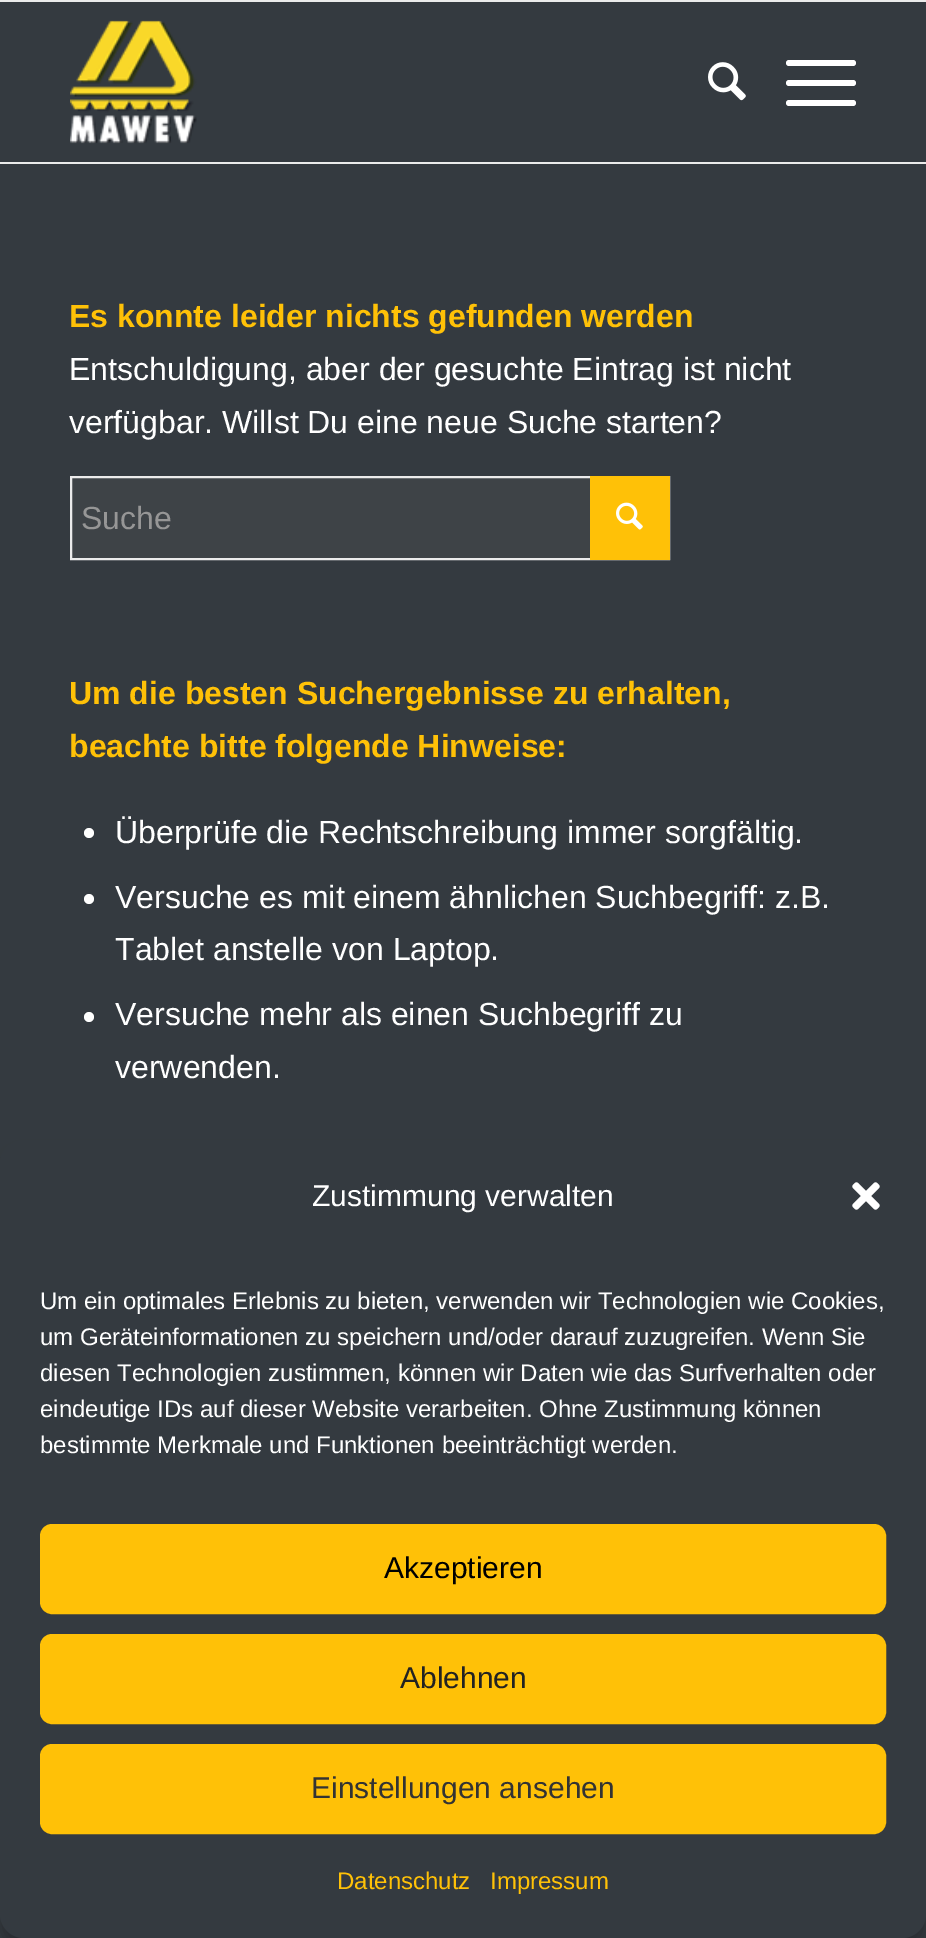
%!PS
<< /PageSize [926 1938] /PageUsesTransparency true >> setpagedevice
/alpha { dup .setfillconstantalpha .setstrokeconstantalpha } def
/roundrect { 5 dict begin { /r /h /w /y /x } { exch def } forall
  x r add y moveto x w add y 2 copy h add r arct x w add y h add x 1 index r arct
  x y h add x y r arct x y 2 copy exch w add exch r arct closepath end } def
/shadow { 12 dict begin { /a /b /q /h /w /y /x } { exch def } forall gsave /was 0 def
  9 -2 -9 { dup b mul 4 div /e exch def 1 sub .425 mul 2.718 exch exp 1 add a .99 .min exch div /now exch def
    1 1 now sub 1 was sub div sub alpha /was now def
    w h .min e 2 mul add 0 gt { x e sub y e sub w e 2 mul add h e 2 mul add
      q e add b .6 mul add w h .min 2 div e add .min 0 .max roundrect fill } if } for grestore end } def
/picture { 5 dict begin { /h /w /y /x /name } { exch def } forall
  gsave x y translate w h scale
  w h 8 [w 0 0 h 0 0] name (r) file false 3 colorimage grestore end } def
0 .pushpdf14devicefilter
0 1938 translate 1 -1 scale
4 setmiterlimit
0.204 0.227 0.251 setrgbcolor
0 0 926 1938 rectfill
0.922 setgray
0 0 926 2 rectfill
0 162 926 2 rectfill
(img1.rgb) 70 20 127 124 picture
(img2.rgb) 708 62 38 39 picture
1 setgray
786 80 70 6 3 roundrect fill
786 60 70 6 3 roundrect fill
786 100 70 6 3 roundrect fill
/LiberationSans-Bold [32 0 0 -32 0 0] selectfont
1 0.757 0.027 setrgbcolor
69 327 moveto (Es konnte leider nichts gefunden werden) show
/LiberationSans-Regular [32 0 0 -32 0 0] selectfont
1 setgray
69 380 moveto (Entschuldigung, aber der gesuchte Eintrag ist nicht) show
69 433 moveto (verfügbar. Willst Du eine neue Suche starten?) show
0.243 0.263 0.278 setrgbcolor
72 478 518 80 rectfill
0.922 setgray
2 setlinewidth
71 477 598 82 rectstroke
0.588 setgray
81 529 moveto (Suche) show
1 0.757 0.027 setrgbcolor
590 476 80 84 rectfill
(img3.rgb) 616 502 27 28 picture
/LiberationSans-Bold [32 0 0 -32 0 0] selectfont
69 704 moveto (Um die besten Suchergebnisse zu erhalten,) show
69 757 moveto (beachte bitte folgende Hinweise:) show
1 setgray
newpath 89 833 5 0 360 arc closepath fill
/LiberationSans-Regular [32 0 0 -32 0 0] selectfont
115 843 moveto (Überprüfe die Rechtschreibung immer sorgfältig.) show
newpath 89 899 5 0 360 arc closepath fill
115 908 moveto (Versuche es mit einem ähnlichen Suchbegriff: z.B.) show
115 960 moveto (Tablet anstelle von Laptop.) show
newpath 89 1017 5 0 360 arc closepath fill
115 1025 moveto (Versuche mehr als einen Suchbegriff zu) show
115 1078 moveto (verwenden.) show
0 setgray
0 1152 926 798 24 6 0.23 shadow
0.204 0.227 0.251 setrgbcolor
0 1140 926 798 24 roundrect fill
/LiberationSans-Regular [30 0 0 -30 0 0] selectfont
1 setgray
312 1206 moveto (Zustimmung verwalten) show
(img4.rgb) 852 1182 28 28 picture
/LiberationSans-Regular [24 0 0 -24 0 0] selectfont
40 1309 moveto (Um ein optimales Erlebnis zu bieten, verwenden wir Technologien wie Cookies,) show
40 1345 moveto (um Geräteinformationen zu speichern und/oder darauf zuzugreifen. Wenn Sie) show
40 1381 moveto (diesen Technologien zustimmen, können wir Daten wie das Surfverhalten oder) show
40 1417 moveto (eindeutige IDs auf dieser Website verarbeiten. Ohne Zustimmung können) show
40 1453 moveto (bestimmte Merkmale und Funktionen beeinträchtigt werden.) show
1 0.757 0.027 setrgbcolor
41 1525 844 88 11 roundrect gsave fill grestore
stroke
/LiberationSans-Regular [30 0 0 -30 0 0] selectfont
0 setgray
384 1578 moveto (Akzeptieren) show
1 0.757 0.027 setrgbcolor
41 1635 844 88 11 roundrect gsave fill grestore
stroke
0.133 setgray
400 1688 moveto (Ablehnen) show
1 0.757 0.027 setrgbcolor
41 1745 844 88 11 roundrect gsave fill grestore
stroke
0.2 setgray
311 1798 moveto (Einstellungen ansehen) show
/LiberationSans-Regular [24 0 0 -24 0 0] selectfont
1 0.757 0.027 setrgbcolor
337 1889 moveto (Datenschutz) show
490 1889 moveto (Impressum) show
.poppdf14devicefilter showpage
